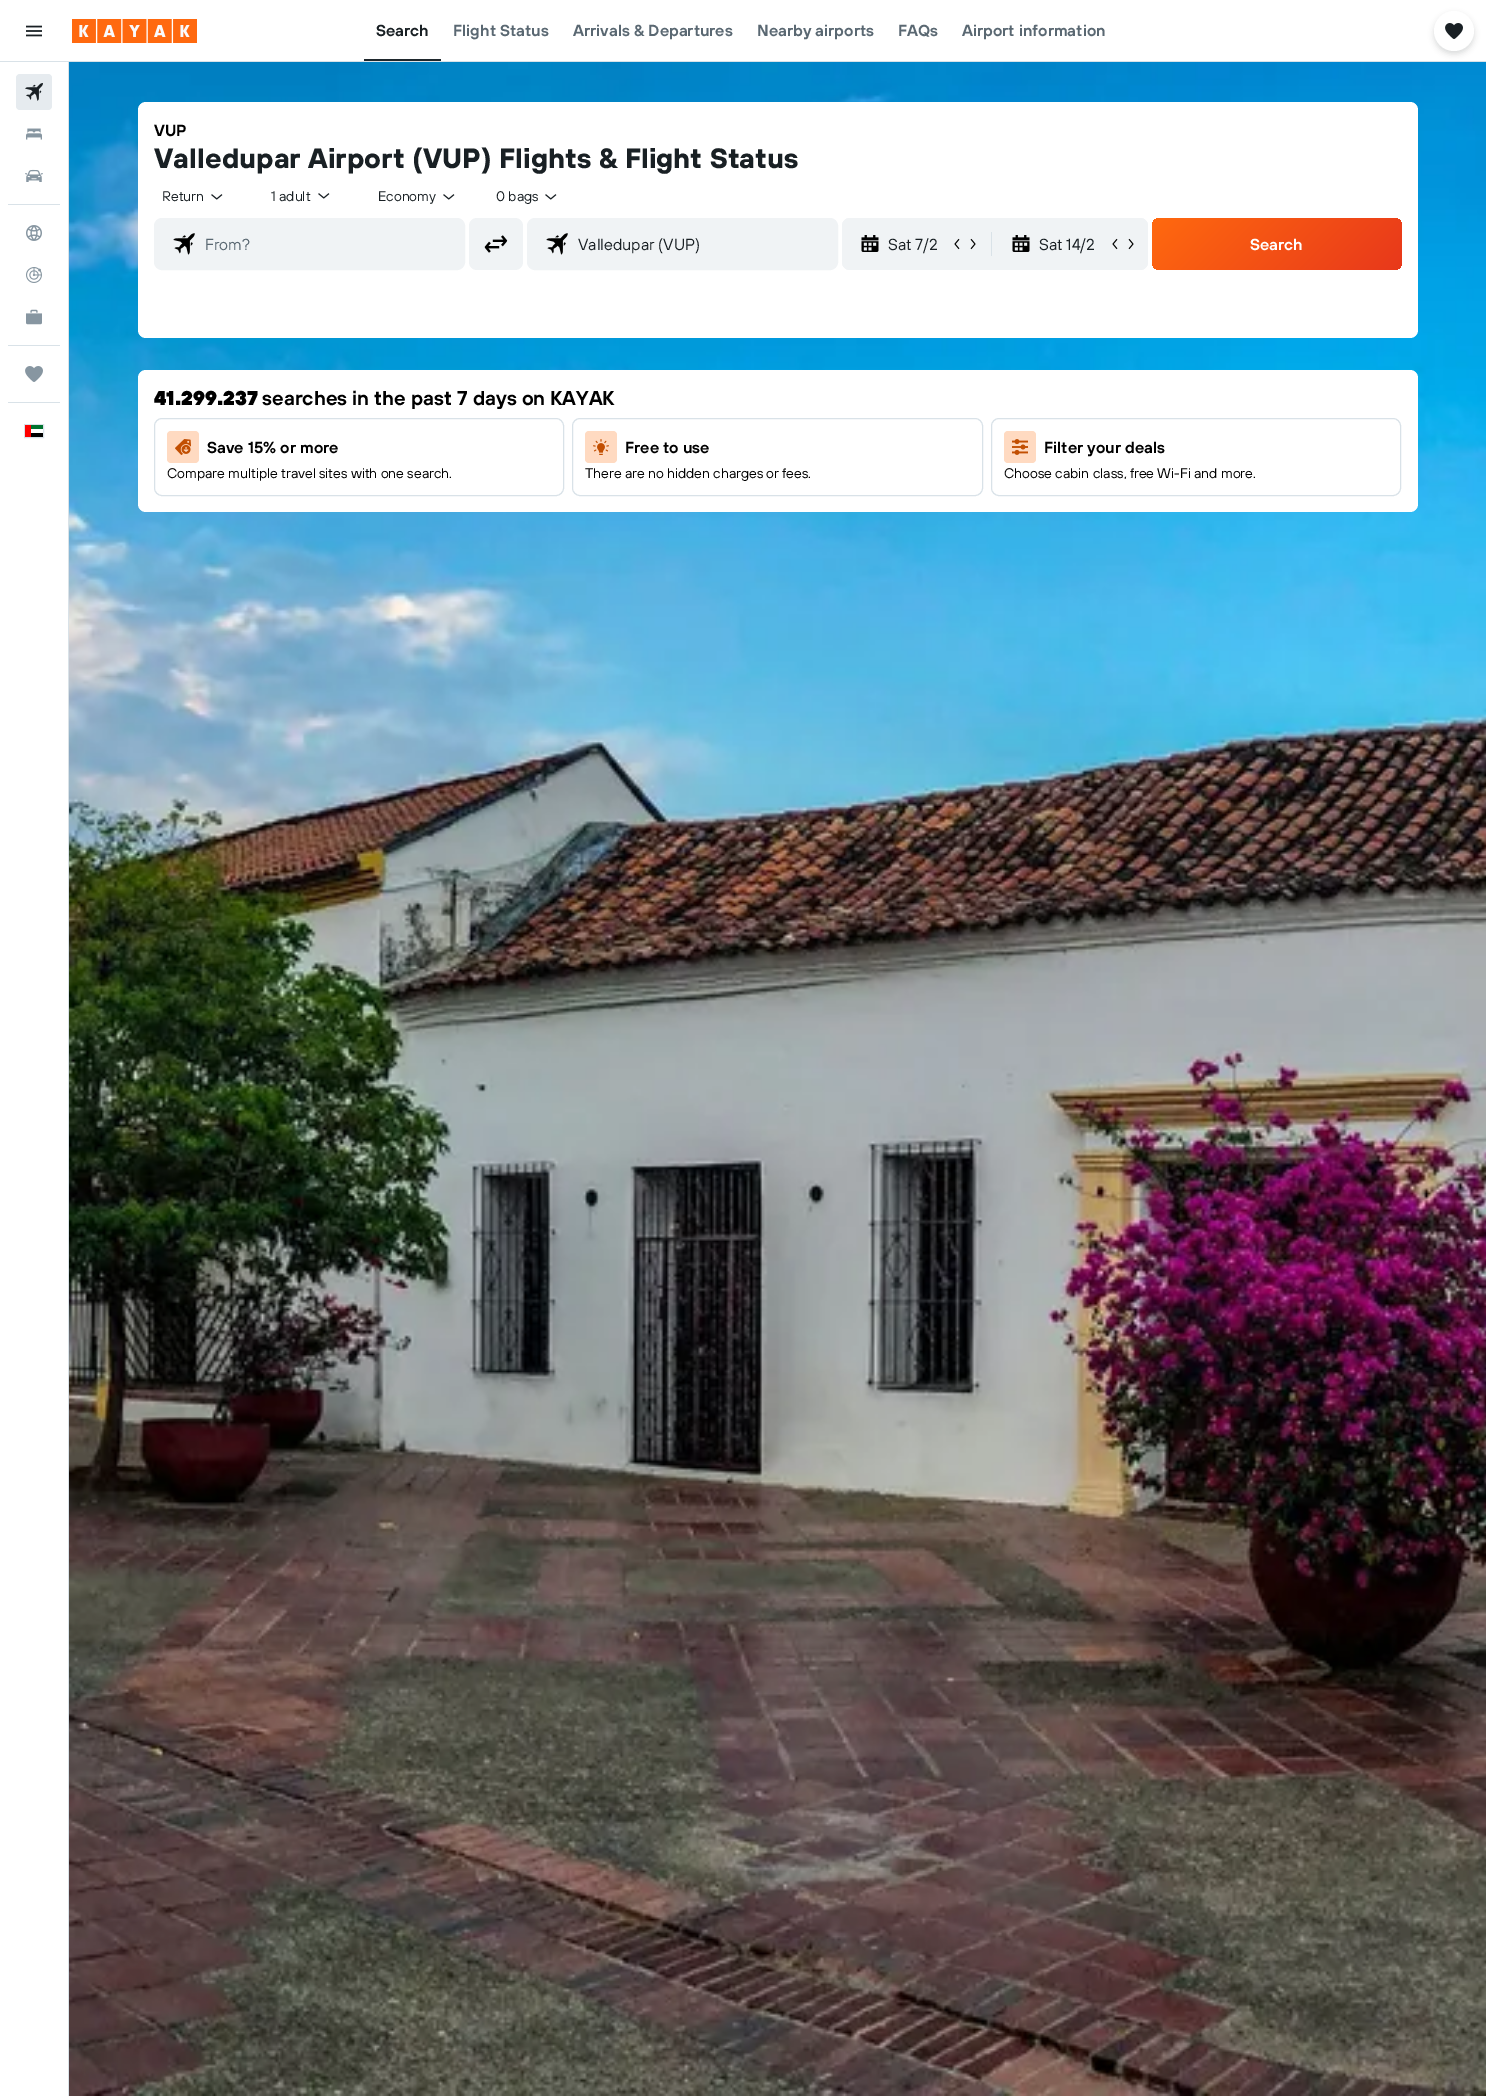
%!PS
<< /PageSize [1486 2096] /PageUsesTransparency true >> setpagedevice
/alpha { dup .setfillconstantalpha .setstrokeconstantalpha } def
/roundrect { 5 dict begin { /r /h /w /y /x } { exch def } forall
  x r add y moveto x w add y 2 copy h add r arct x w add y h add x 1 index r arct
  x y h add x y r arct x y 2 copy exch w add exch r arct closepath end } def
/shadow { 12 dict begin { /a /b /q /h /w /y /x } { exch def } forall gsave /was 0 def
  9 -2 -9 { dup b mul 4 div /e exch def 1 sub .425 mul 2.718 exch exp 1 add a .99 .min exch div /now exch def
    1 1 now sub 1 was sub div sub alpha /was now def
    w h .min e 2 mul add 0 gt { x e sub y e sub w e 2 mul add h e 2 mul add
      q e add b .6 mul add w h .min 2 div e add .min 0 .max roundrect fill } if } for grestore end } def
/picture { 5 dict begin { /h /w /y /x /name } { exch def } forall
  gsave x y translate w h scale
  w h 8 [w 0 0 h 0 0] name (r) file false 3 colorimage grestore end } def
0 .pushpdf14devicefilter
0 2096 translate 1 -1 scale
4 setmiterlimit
1 setgray
0 0 1486 2096 rectfill
0.851 0.886 0.91 setrgbcolor
0 61 1486 1 rectfill
(img1.rgb) 26 25 16 12 picture
(img2.rgb) 72 19 125 24 picture
0.122 0.157 0.176 setrgbcolor
364 59 77 2 rectfill
/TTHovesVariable-SemiBold [16 0 0 -16 0 0] selectfont
0.098 0.125 0.141 setrgbcolor
376 36 moveto (Search) show
0.353 0.408 0.447 setrgbcolor
453 36 moveto (Flight Status) show
573 36 moveto (Arrivals & Departures) show
757 36 moveto (Nearby airports) show
898 36 moveto (FAQs) show
962 36 moveto (Airport information) show
(img11.rgb) 69 62 1417 2034 picture
0.098 0.125 0.141 setrgbcolor
1434 14 40 40 20 3 0.16 shadow
1 setgray
newpath 1454 31 20 0 360 arc closepath fill
(img3.rgb) 1445 23 18 16 picture
0.851 0.886 0.91 setrgbcolor
68 62 1 2034 rectfill
0.902 0.922 0.937 setrgbcolor
16 74 36 36 4 roundrect fill
(img4.rgb) 25 83 18 18 picture
(img5.rgb) 26 128 16 12 picture
(img6.rgb) 25 169 18 13 picture
0.851 0.886 0.91 setrgbcolor
8 204 52 1 rectfill
(img7.rgb) 26 225 16 16 picture
(img8.rgb) 26 267 16 16 picture
(img9.rgb) 26 309 16 16 picture
8 345 52 1 rectfill
(img10.rgb) 25 366 18 16 picture
8 402 52 1 rectfill
24.5 424.5 19 13 rectstroke
0 0.451 0.184 setrgbcolor
25 425 18 4 rectfill
0 setgray
25 433 18 4 rectfill
1 0 0 setrgbcolor
25 425 6 12 rectfill
1 setgray
138 102 1280 236 8 roundrect fill
0 setgray
154 136 moveto (VUP) show
/TTHovesVariable-Bold [28 0 0 -28 0 0] selectfont
0.098 0.125 0.141 setrgbcolor
154 168 moveto (Valledupar Airport \(VUP\) Flights & Flight Status) show
/TTHovesVariable-Regular [14 0 0 -14 0 0] selectfont
162 201 moveto (Return) show
(img12.rgb) 211 194 12 6 picture
271 201 moveto (1 adult) show
(img12.rgb) 318 193 12 6 picture
378 201 moveto (Economy) show
(img12.rgb) 443 194 12 6 picture
496 201 moveto (0 bags) show
(img12.rgb) 545 194 12 6 picture
0.941 0.953 0.961 setrgbcolor
154.5 218.5 310 51 7.5 roundrect gsave fill grestore
stroke
(img13.rgb) 173 233 22 22 picture
/TTHovesVariable-Regular [16 0 0 -16 0 0] selectfont
0.353 0.408 0.447 setrgbcolor
205 250 moveto (From?) show
0.941 0.953 0.961 setrgbcolor
469 218 54 52 8 roundrect fill
(img14.rgb) 484 235 24 18 picture
527.5 218.5 310 51 7.5 roundrect gsave fill grestore
stroke
(img13.rgb) 546 233 22 22 picture
0.098 0.125 0.141 setrgbcolor
578 250 moveto (Valledupar \(VUP\)) show
0.941 0.953 0.961 setrgbcolor
842 218 306 52 8 roundrect fill
842 218 148 52 8 roundrect fill
(img15.rgb) 861 235 18 17 picture
0.098 0.125 0.141 setrgbcolor
888 250 moveto (Sat 7/2) show
(img16.rgb) 954 238 6 12 picture
(img17.rgb) 970 238 6 12 picture
0.851 0.886 0.91 setrgbcolor
991 232 1 24 rectfill
0.941 0.953 0.961 setrgbcolor
993 218 155 52 8 roundrect fill
(img15.rgb) 1012 235 18 17 picture
0.098 0.125 0.141 setrgbcolor
1039 250 moveto (Sat 14/2) show
(img16.rgb) 1112 238 6 12 picture
(img17.rgb) 1128 238 6 12 picture
gsave 1152 218 250 52 8 roundrect clip newpath
<< /ShadingType 2 /ColorSpace /DeviceRGB /Coords [1202 169 1353 320] /Extend [true true] /Function << /FunctionType 2 /Domain [0 1] /C0 [1 0.412 0.059] /C1 [0.91 0.22 0.106] /N 1 >> >> shfill grestore
/TTHovesVariable-SemiBold [16 0 0 -16 0 0] selectfont
1 setgray
1250 250 moveto (Search) show
138 370 1280 142 8 roundrect fill
/TTHovesVariable-Black [20 0 0 -20 0 0] selectfont
0 setgray
154 405 moveto (41.299.237) show
/TTHovesVariable-SemiBold [20 0 0 -20 0 0] selectfont
262 405 moveto (searches in the past 7 days on KAYAK) show
0.851 0.886 0.91 setrgbcolor
154.5 418.5 409 77 7.5 roundrect stroke
1 0.855 0.757 setrgbcolor
167 431 32 32 4 roundrect fill
(img18.rgb) 175 439 16 16 picture
/TTHovesVariable-SemiBold [16 0 0 -16 0 0] selectfont
0 setgray
207 453 moveto (Save 15% or more) show
/TTHovesVariable-Regular [14 0 0 -14 0 0] selectfont
167 478 moveto (Compare multiple travel sites with one search.) show
0.851 0.886 0.91 setrgbcolor
572.5 418.5 410 77 7.5 roundrect stroke
1 0.855 0.757 setrgbcolor
585 431 32 32 4 roundrect fill
(img19.rgb) 593 439 16 16 picture
/TTHovesVariable-SemiBold [16 0 0 -16 0 0] selectfont
0 setgray
625 453 moveto (Free to use) show
/TTHovesVariable-Regular [14 0 0 -14 0 0] selectfont
585 478 moveto (There are no hidden charges or fees.) show
0.851 0.886 0.91 setrgbcolor
991.5 418.5 409 77 7.5 roundrect stroke
1 0.855 0.757 setrgbcolor
1004 431 32 32 4 roundrect fill
(img20.rgb) 1012 439 16 16 picture
/TTHovesVariable-SemiBold [16 0 0 -16 0 0] selectfont
0 setgray
1044 453 moveto (Filter your deals) show
/TTHovesVariable-Regular [14 0 0 -14 0 0] selectfont
1004 478 moveto (Choose cabin class, free Wi-Fi and more.) show
.poppdf14devicefilter showpage
